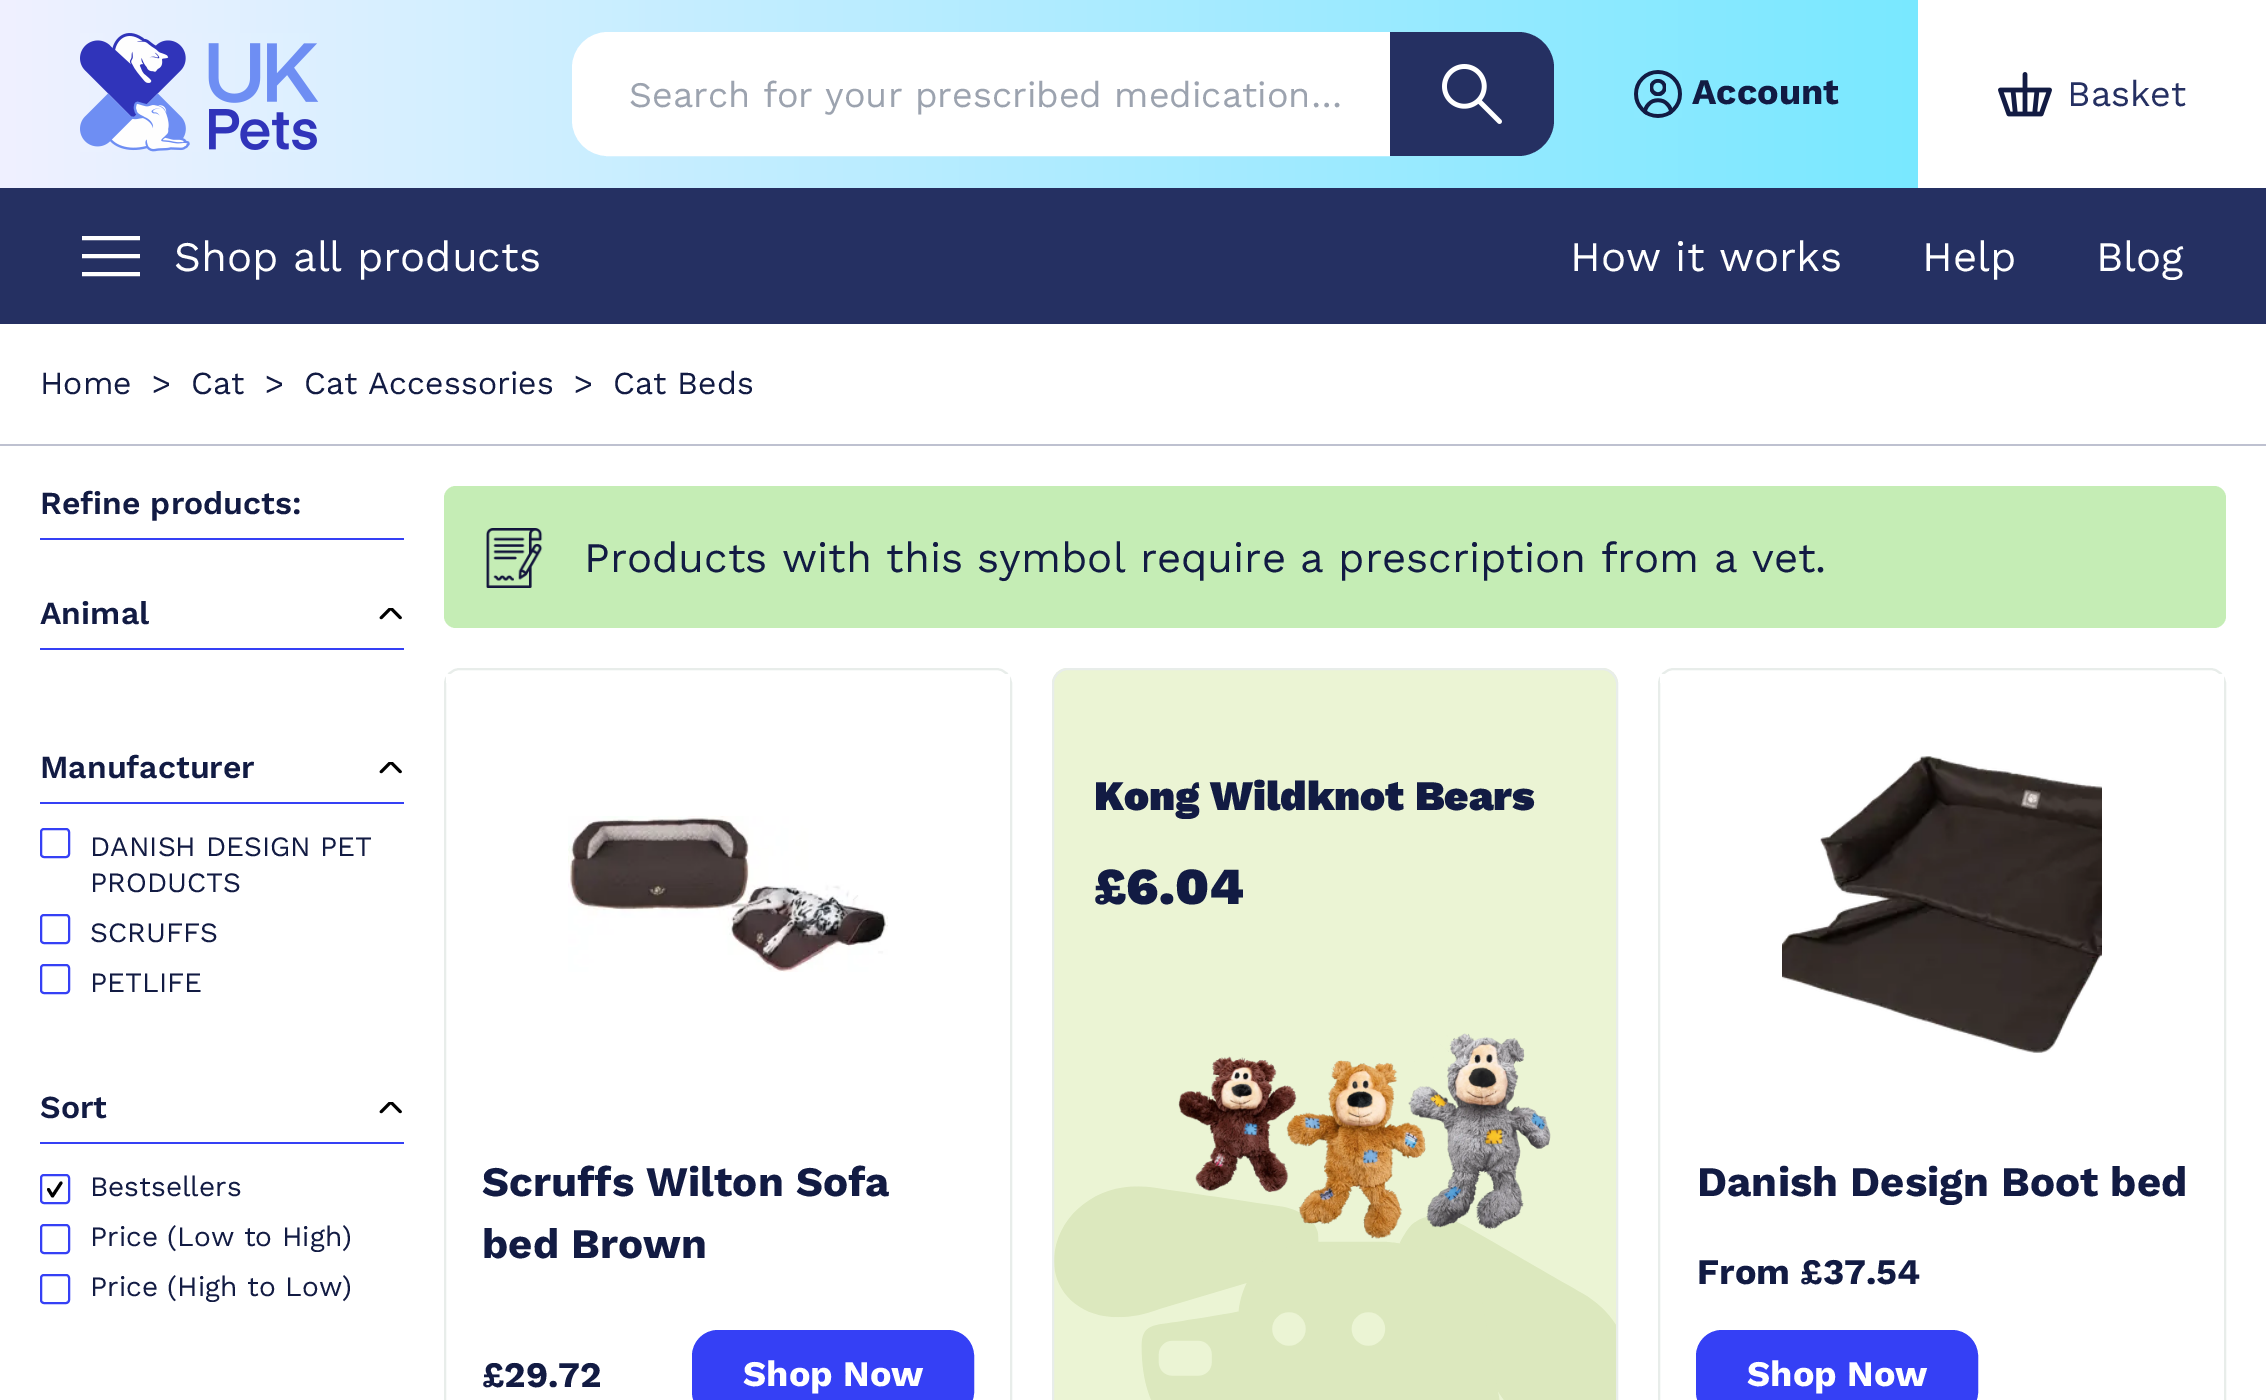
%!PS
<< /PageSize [2266 1400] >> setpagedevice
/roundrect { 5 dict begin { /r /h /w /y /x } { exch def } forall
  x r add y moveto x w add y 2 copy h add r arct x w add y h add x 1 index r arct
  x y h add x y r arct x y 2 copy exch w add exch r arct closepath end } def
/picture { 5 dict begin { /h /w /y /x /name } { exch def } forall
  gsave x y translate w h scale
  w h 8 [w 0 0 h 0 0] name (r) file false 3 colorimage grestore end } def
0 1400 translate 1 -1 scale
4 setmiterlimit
1 setgray
0 0 2266 1400 rectfill
gsave newpath 0 0 moveto 1918 0 lineto 1918 188 lineto 0 188 lineto closepath clip newpath
<< /ShadingType 2 /ColorSpace /DeviceRGB /Coords [0 94 2266 94] /Extend [true true] /Function << /FunctionType 2 /Domain [0 1] /C0 [0.941 0.945 1] /C1 [0.392 0.902 1] /N 1 >> >> shfill grestore
(img1.rgb) 80 33 239 119 picture
newpath 608 33 moveto 1389 33 lineto 1389 155 lineto 608 155 lineto 588.5 155 573 139.5 573 120 curveto 573 68 lineto 573 48.5 588.5 33 608 33 curveto closepath gsave fill grestore
2 setlinewidth
stroke
/WorkSans-Regular [36 0 0 -36 0 0] selectfont
0.612 0.639 0.686 setrgbcolor
629 107 moveto (Search for your prescribed medication…) show
0.145 0.188 0.384 setrgbcolor
newpath 1390 32 moveto 1518 32 lineto 1538 32 1554 48 1554 68 curveto 1554 120 lineto 1554 140 1538 156 1518 156 curveto 1390 156 lineto closepath fill
(img2.rgb) 1442 64 60 60 picture
(img3.rgb) 1634 70 48 48 picture
/WorkSans-Bold [36 0 0 -36 0 0] selectfont
0.071 0.106 0.263 setrgbcolor
1692 104 moveto (Account) show
(img4.rgb) 1998 72 54 45 picture
/WorkSans-Regular [36 0 0 -36 0 0] selectfont
0.145 0.188 0.384 setrgbcolor
2067 106 moveto (Basket) show
0 188 2266 136 rectfill
1 setgray
4 setlinewidth
newpath 82 238 moveto 140 238 lineto 82 256 moveto 140 256 lineto 82 274 moveto 140 274 lineto stroke
/WorkSans-Regular [42 0 0 -42 0 0] selectfont
174 271 moveto (Shop all products) show
1570 271 moveto (How it works) show
1922 271 moveto (Help) show
2096 271 moveto (Blog) show
0.745 0.757 0.816 setrgbcolor
0 444 2266 2 rectfill
/WorkSans-Regular [32 0 0 -32 0 0] selectfont
0.071 0.106 0.263 setrgbcolor
40 394 moveto (Home) show
152 394 moveto (>) show
191 394 moveto (Cat) show
265 394 moveto (>) show
304 394 moveto (Cat Accessories) show
574 394 moveto (>) show
613 394 moveto (Cat Beds) show
0.208 0.251 0.961 setrgbcolor
40 538 364 2 rectfill
/WorkSans-SemiBold [32 0 0 -32 0 0] selectfont
0.071 0.106 0.263 setrgbcolor
40 514 moveto (Refine products:) show
0.208 0.251 0.961 setrgbcolor
40 648 364 2 rectfill
0.071 0.106 0.263 setrgbcolor
40 624 moveto (Animal) show
(img5.rgb) 379 608 23 12 picture
0.208 0.251 0.961 setrgbcolor
40 802 364 2 rectfill
0.071 0.106 0.263 setrgbcolor
40 778 moveto (Manufacturer) show
(img5.rgb) 379 762 23 12 picture
0.208 0.251 0.961 setrgbcolor
2 setlinewidth
41 829 28 28 3 roundrect stroke
/WorkSans-Regular [28 0 0 -28 0 0] selectfont
0.071 0.106 0.263 setrgbcolor
90 856 moveto (DANISH DESIGN PET) show
90 892 moveto (PRODUCTS) show
0.208 0.251 0.961 setrgbcolor
41 915 28 28 3 roundrect stroke
0.071 0.106 0.263 setrgbcolor
90 942 moveto (SCRUFFS) show
0.208 0.251 0.961 setrgbcolor
41 965 28 28 3 roundrect stroke
0.071 0.106 0.263 setrgbcolor
90 992 moveto (PETLIFE) show
0.208 0.251 0.961 setrgbcolor
40 1142 364 2 rectfill
/WorkSans-SemiBold [32 0 0 -32 0 0] selectfont
0.071 0.106 0.263 setrgbcolor
40 1118 moveto (Sort) show
(img5.rgb) 379 1102 23 12 picture
0.208 0.251 0.961 setrgbcolor
41 1175 28 28 3 roundrect stroke
0 setgray
3 setlinewidth
1 setlinecap
1 setlinejoin
newpath 48.5 1189.5 moveto 52.5 1196 lineto 61 1183 lineto stroke
/WorkSans-Regular [28 0 0 -28 0 0] selectfont
0.071 0.106 0.263 setrgbcolor
90 1196 moveto (Bestsellers) show
0.208 0.251 0.961 setrgbcolor
2 setlinewidth
0 setlinecap
0 setlinejoin
41 1225 28 28 3 roundrect stroke
0.071 0.106 0.263 setrgbcolor
90 1246 moveto (Price \(Low to High\)) show
0.208 0.251 0.961 setrgbcolor
41 1275 28 28 3 roundrect stroke
0.071 0.106 0.263 setrgbcolor
90 1296 moveto (Price \(High to Low\)) show
0.773 0.929 0.71 setrgbcolor
444 486 1782 142 12 roundrect fill
(img6.rgb) 486 528 57 60 picture
/WorkSans-Regular [42 0 0 -42 0 0] selectfont
0.071 0.106 0.263 setrgbcolor
584 572 moveto (Products with this symbol require a prescription from a vet.) show
0.922 0.957 0.831 setrgbcolor
1052 668 566 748 16 roundrect fill
(img7.rgb) 1054 1186 562 214 picture
0.91 0.929 0.918 setrgbcolor
1053 669 564 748 15 roundrect stroke
/WorkSans-Black [42 0 0 -42 0 0] selectfont
0.071 0.106 0.263 setrgbcolor
1094 810 moveto (Kong Wildknot Bears) show
/WorkSans-Black [52 0 0 -52 0 0] selectfont
1094 904 moveto (£6.04) show
(img8.rgb) 1178 1033 373 206 picture
0.91 0.929 0.918 setrgbcolor
445 669 566 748 15 roundrect stroke
1 setgray
446 674 564 9 rectfill
(img9.rgb) 568 816 320 156 picture
/WorkSans-Bold [42 0 0 -42 0 0] selectfont
0.071 0.106 0.263 setrgbcolor
482 1196 moveto (Scruffs Wilton Sofa) show
482 1258 moveto (bed Brown) show
/WorkSans-Bold [36 0 0 -36 0 0] selectfont
482 1387 moveto (£29.72) show
0.208 0.251 0.961 setrgbcolor
693 1331 280 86 25 roundrect gsave fill grestore
stroke
1 setgray
743 1386 moveto (Shop Now) show
0.91 0.929 0.918 setrgbcolor
1659 669 566 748 15 roundrect stroke
1 setgray
1660 674 564 9 rectfill
(img10.rgb) 1782 756 320 297 picture
/WorkSans-Bold [42 0 0 -42 0 0] selectfont
0.071 0.106 0.263 setrgbcolor
1697 1196 moveto (Danish Design Boot bed) show
/WorkSans-Bold [36 0 0 -36 0 0] selectfont
1697 1284 moveto (From £37.54) show
0.208 0.251 0.961 setrgbcolor
1697 1331 280 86 25 roundrect gsave fill grestore
stroke
1 setgray
1747 1386 moveto (Shop Now) show
showpage
